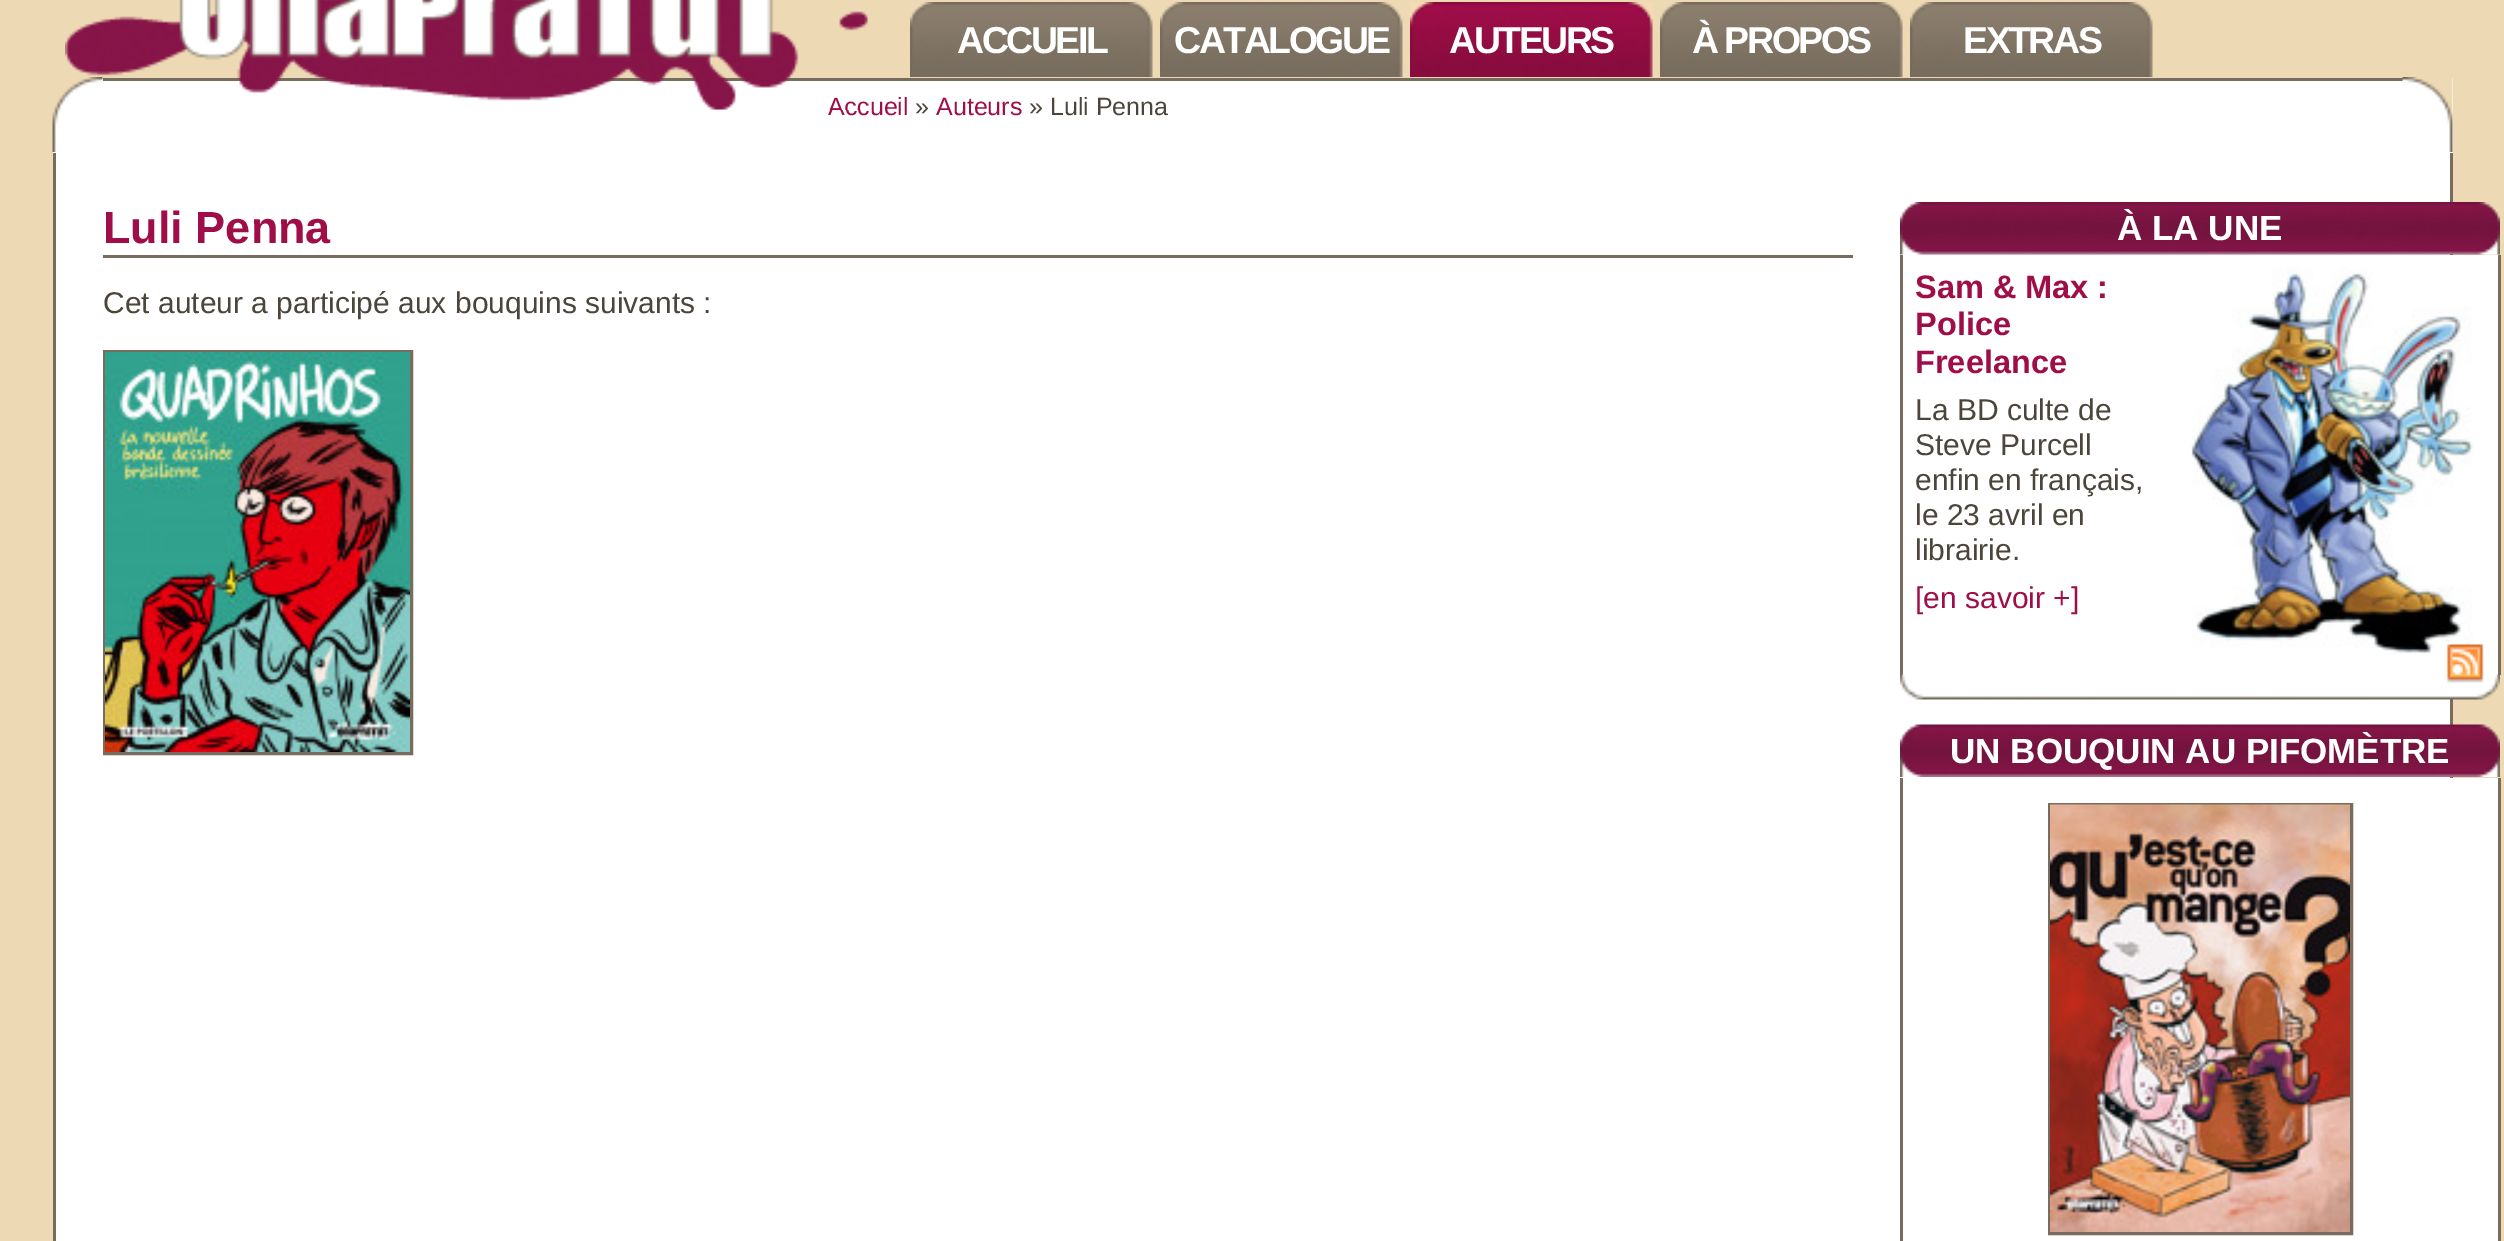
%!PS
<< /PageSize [2504 1241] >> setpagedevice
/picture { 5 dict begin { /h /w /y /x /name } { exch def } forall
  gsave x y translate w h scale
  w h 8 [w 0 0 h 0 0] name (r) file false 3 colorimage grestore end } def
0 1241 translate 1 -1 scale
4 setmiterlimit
0.929 0.855 0.71 setrgbcolor
0 0 2504 1241 rectfill
1 setgray
53 78 50 75 rectfill
(img5.rgb) 52 77 51 75 picture
103 81 2300 72 rectfill
0.467 0.424 0.369 setrgbcolor
103 78 2300 3 rectfill
/LiberationSans-Regular [25 0 0 -25 0 0] selectfont
0.624 0.055 0.282 setrgbcolor
828 115 moveto (Accueil) show
(img1.rgb) 65 0 803 110 picture
(img2.rgb) 910 2 243 75 picture
/LiberationSans-Bold [37.5 0 0 -37.5 0 0] selectfont
1 setgray
957 53 moveto -2.5 0 (ACCUEIL) ashow
(img3.rgb) 1160 2 243 75 picture
1174 53 moveto -2.5 0 (CATALOGUE) ashow
(img4.rgb) 1410 2 243 75 picture
1449 53 moveto -2.5 0 (AUTEURS) ashow
(img2.rgb) 1660 2 243 75 picture
1692 53 moveto -2.5 0 (À PROPOS) ashow
(img2.rgb) 1910 2 243 75 picture
1963 53 moveto -2.5 0 (EXTRAS) ashow
/LiberationSans-Regular [25 0 0 -25 0 0] selectfont
0.298 0.271 0.231 setrgbcolor
915 115 moveto (») show
0.624 0.055 0.282 setrgbcolor
936 115 moveto (Auteurs) show
0.298 0.271 0.231 setrgbcolor
1029 115 moveto (» Luli Penna) show
1 setgray
2403 78 50 75 rectfill
(img6.rgb) 2402 77 51 75 picture
56 153 2394 1088 rectfill
0.467 0.424 0.369 setrgbcolor
2450 153 3 625 rectfill
53 153 3 1088 rectfill
103 255 1750 3 rectfill
/LiberationSans-Bold [45 0 0 -45 0 0] selectfont
0.624 0.055 0.282 setrgbcolor
103 243 moveto (Luli Penna) show
/LiberationSans-Regular [30 0 0 -30 0 0] selectfont
0.298 0.271 0.231 setrgbcolor
103 313 moveto (Cet auteur a participé aux bouquins suivants :) show
0.467 0.424 0.369 setrgbcolor
3 setlinewidth
104.5 351.5 307 402 rectstroke
(img7.rgb) 105 352 305 400 picture
(img8.rgb) 1900 202 600 53 picture
/LiberationSans-Bold [35 0 0 -35 0 0] selectfont
1 setgray
2117 240 moveto (À LA UNE) show
2450 255 48 420 rectfill
0.467 0.424 0.369 setrgbcolor
2498 255 3 420 rectfill
1900 255 3 420 rectfill
/LiberationSans-Bold [32.5 0 0 -32.5 0 0] selectfont
0.624 0.055 0.282 setrgbcolor
1915 298 moveto (Sam & Max :) show
1915 335 moveto (Police) show
1915 373 moveto (Freelance) show
(img9.rgb) 2191 267 282 388 picture
/LiberationSans-Regular [30 0 0 -30 0 0] selectfont
0.298 0.271 0.231 setrgbcolor
1915 420 moveto (La BD culte de) show
1915 455 moveto (Steve Purcell) show
1915 490 moveto (enfin en français,) show
1915 525 moveto (le 23 avril en) show
1915 560 moveto (librairie.) show
0.624 0.055 0.282 setrgbcolor
1915 608 moveto ([en savoir +]) show
(img11.rgb) 1900 674 600 26 picture
(img10.rgb) 2446 644 38 39 picture
(img12.rgb) 1900 724 600 53 picture
/LiberationSans-Bold [35 0 0 -35 0 0] selectfont
1 setgray
1950 763 moveto (UN BOUQUIN AU PIFOMÈTRE) show
2450 778 48 463 rectfill
0.467 0.424 0.369 setrgbcolor
2498 778 3 463 rectfill
1900 778 3 463 rectfill
2049.5 804.5 302 429 rectstroke
(img13.rgb) 2050 804 300 428 picture
showpage
